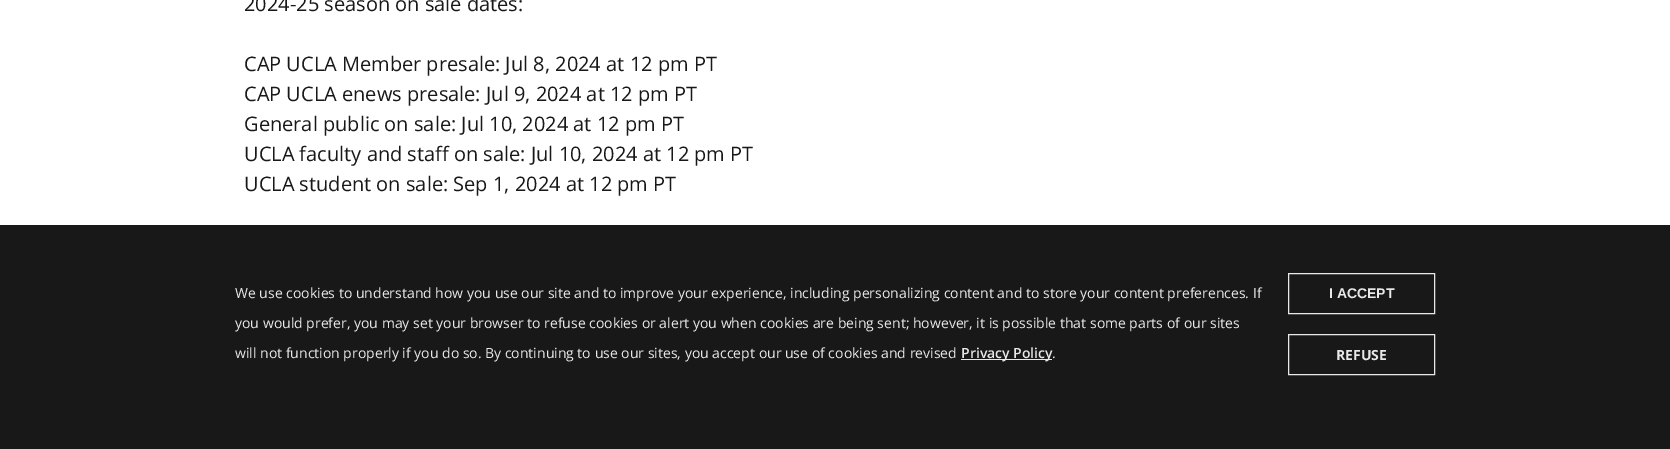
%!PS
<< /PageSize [1670 449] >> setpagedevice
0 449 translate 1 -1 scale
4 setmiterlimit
1 setgray
0 0 1670 449 rectfill
/OpenSans-Regular [20 0 0 -20 0 0] selectfont
0.094 setgray
244 11 moveto (2024-25 season on sale dates:) show
244 71 moveto (CAP UCLA Member presale: Jul 8, 2024 at 12 pm PT) show
244 101 moveto (CAP UCLA enews presale: Jul 9, 2024 at 12 pm PT) show
244 131 moveto (General public on sale: Jul 10, 2024 at 12 pm PT) show
244 161 moveto (UCLA faculty and staff on sale: Jul 10, 2024 at 12 pm PT) show
244 191 moveto (UCLA student on sale: Sep 1, 2024 at 12 pm PT) show
0 225 1670 224 rectfill
/OpenSans-Regular [14 0 0 -14 0 0] selectfont
0.91 setgray
235 298 moveto (We use cookies to understand how you use our site and to improve your experience, including personalizing content and to store your content preferences. If) show
235 328 moveto (you would prefer, you may set your browser to refuse cookies or alert you when cookies are being sent; however, it is possible that some parts of our sites) show
235 358 moveto (will not function properly if you do so. By continuing to use our sites, you accept our use of cookies and revised) show
961 359 91 1 rectfill
/OpenSans-SemiBold [14 0 0 -14 0 0] selectfont
961 358 moveto (Privacy Policy) show
/OpenSans-Regular [14 0 0 -14 0 0] selectfont
1052 358 moveto (.) show
1288.5 273.5 146 40 rectstroke
/LiberationSans-Bold [14 0 0 -14 0 0] selectfont
1329 298 moveto (I ACCEPT) show
1288.5 334.5 146 40 rectstroke
/OpenSans-Bold [14 0 0 -14 0 0] selectfont
1336 360 moveto (REFUSE) show
showpage
